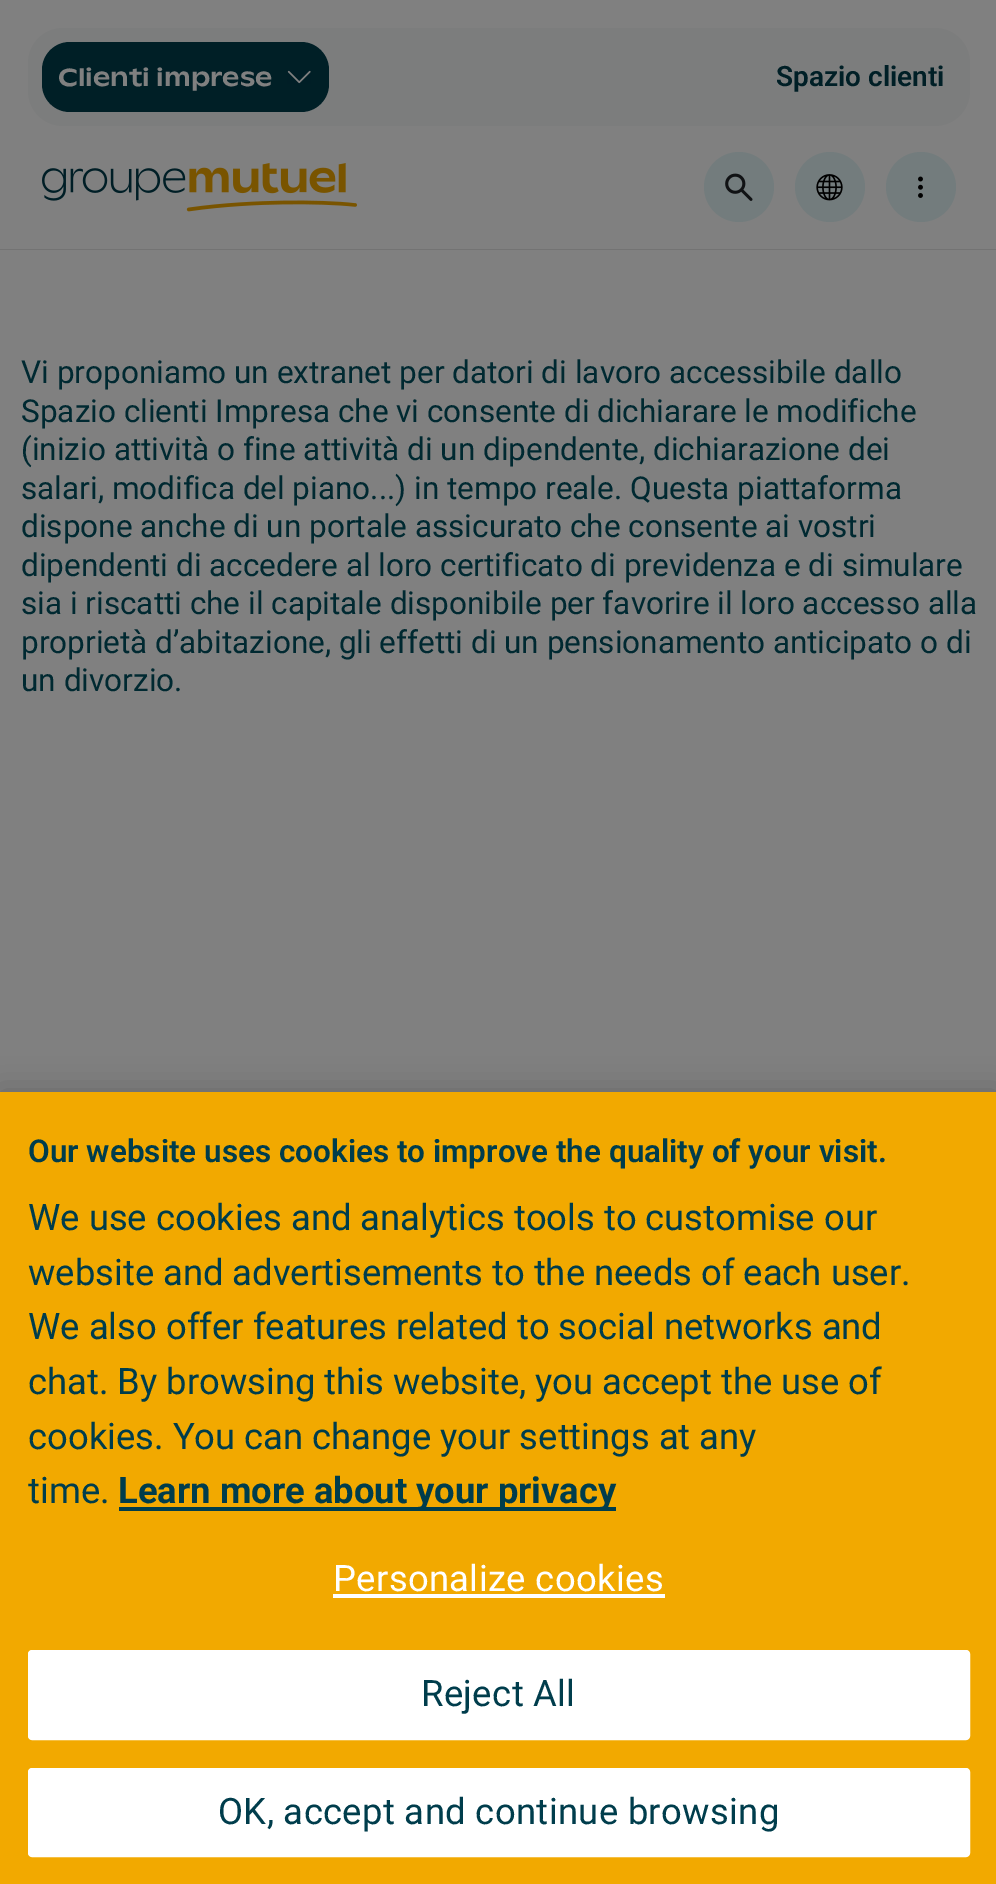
%!PS
<< /PageSize [996 1884] /PageUsesTransparency true >> setpagedevice
/alpha { dup .setfillconstantalpha .setstrokeconstantalpha } def
/roundrect { 5 dict begin { /r /h /w /y /x } { exch def } forall
  x r add y moveto x w add y 2 copy h add r arct x w add y h add x 1 index r arct
  x y h add x y r arct x y 2 copy exch w add exch r arct closepath end } def
/shadow { 12 dict begin { /a /b /q /h /w /y /x } { exch def } forall gsave /was 0 def
  9 -2 -9 { dup b mul 4 div /e exch def 1 sub .425 mul 2.718 exch exp 1 add a .99 .min exch div /now exch def
    1 1 now sub 1 was sub div sub alpha /was now def
    w h .min e 2 mul add 0 gt { x e sub y e sub w e 2 mul add h e 2 mul add
      q e add b .6 mul add w h .min 2 div e add .min 0 .max roundrect fill } if } for grestore end } def
/picture { 5 dict begin { /h /w /y /x /name } { exch def } forall
  gsave x y translate w h scale
  w h 8 [w 0 0 h 0 0] name (r) file false 3 colorimage grestore end } def
0 .pushpdf14devicefilter
0 1884 translate 1 -1 scale
4 setmiterlimit
0.502 setgray
0 0 996 1884 rectfill
0.486 0.49 0.49 setrgbcolor
28 28 942 98 35 roundrect fill
0 0.122 0.149 setrgbcolor
42 42 287 70 28 roundrect fill
/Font-Medium [24.5 0 0 -24.5 0 0] selectfont
0.502 setgray
58 86 moveto (Clienti imprese) show
(img1.rgb) 287 70 24 14 picture
/Roboto-SemiBold [28 0 0 -28 0 0] selectfont
0 0.122 0.149 setrgbcolor
776 86 moveto (Spazio clienti) show
0.451 setgray
newpath 0 248 moveto 0 250 lineto 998 250 lineto 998 128 lineto 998 248 lineto closepath fill
0.502 setgray
0 248 996 1 rectfill
(img2.rgb) 42 163 315 49 picture
0.451 0.486 0.49 setrgbcolor
newpath 739 187 35 0 360 arc closepath fill
(img3.rgb) 725 173 28 28 picture
newpath 830 187 35 0 360 arc closepath fill
(img4.rgb) 816 174 27 27 picture
newpath 921 187 35 0 360 arc closepath fill
(img5.rgb) 918 176 5 22 picture
/Roboto-Regular [31.5 0 0 -31.5 0 0] selectfont
0 0.161 0.192 setrgbcolor
21 383 moveto (Vi proponiamo un extranet per datori di lavoro accessibile dallo) show
21 422 moveto (Spazio clienti Impresa che vi consente di dichiarare le modifiche) show
21 460 moveto (\(inizio attività o fine attività di un dipendente, dichiarazione dei) show
21 499 moveto (salari, modifica del piano...\) in tempo reale. Questa piattaforma) show
21 537 moveto (dispone anche di un portale assicurato che consente ai vostri) show
21 576 moveto (dipendenti di accedere al loro certificato di previdenza e di simulare) show
21 614 moveto (sia i riscatti che il capitale disponibile per favorire il loro accesso alla) show
21 653 moveto (proprietà d’abitazione, gli effetti di un pensionamento anticipato o di) show
21 691 moveto (un divorzio.) show
0 setgray
0 1092 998 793 0 16 0.2 shadow
0.949 0.663 0 setrgbcolor
0 1092 996 792 rectfill
/Roboto-SemiBold [31.5 0 0 -31.5 0 0] selectfont
0 0.239 0.298 setrgbcolor
28 1162 moveto (Our website uses cookies to improve the quality of your visit.) show
/Roboto-Regular [36.4 0 0 -36.4 0 0] selectfont
28 1230 moveto (We use cookies and analytics tools to customise our) show
28 1285 moveto (website and advertisements to the needs of each user.) show
28 1339 moveto (We also offer features related to social networks and) show
28 1394 moveto (chat. By browsing this website, you accept the use of) show
28 1449 moveto (cookies. You can change your settings at any) show
28 1503 moveto (time.) show
119 1507 497 4 rectfill
/Roboto-Bold [36.4 0 0 -36.4 0 0] selectfont
118 1503 moveto (Learn more about your privacy) show
/Roboto-Regular [36.4 0 0 -36.4 0 0] selectfont
1 setgray
333 1591 moveto 0.35 0 (Personalize cookies) ashow
333 1594 332 4 rectfill
29 1651 940 88 3 roundrect gsave fill grestore
2 setlinewidth
stroke
0 0.239 0.298 setrgbcolor
421 1706 moveto 0.35 0 (Reject All) ashow
1 setgray
29 1769 940 87 3 roundrect gsave fill grestore
stroke
0 0.239 0.298 setrgbcolor
218 1824 moveto 0.35 0 (OK, accept and continue browsing) ashow
.poppdf14devicefilter showpage
